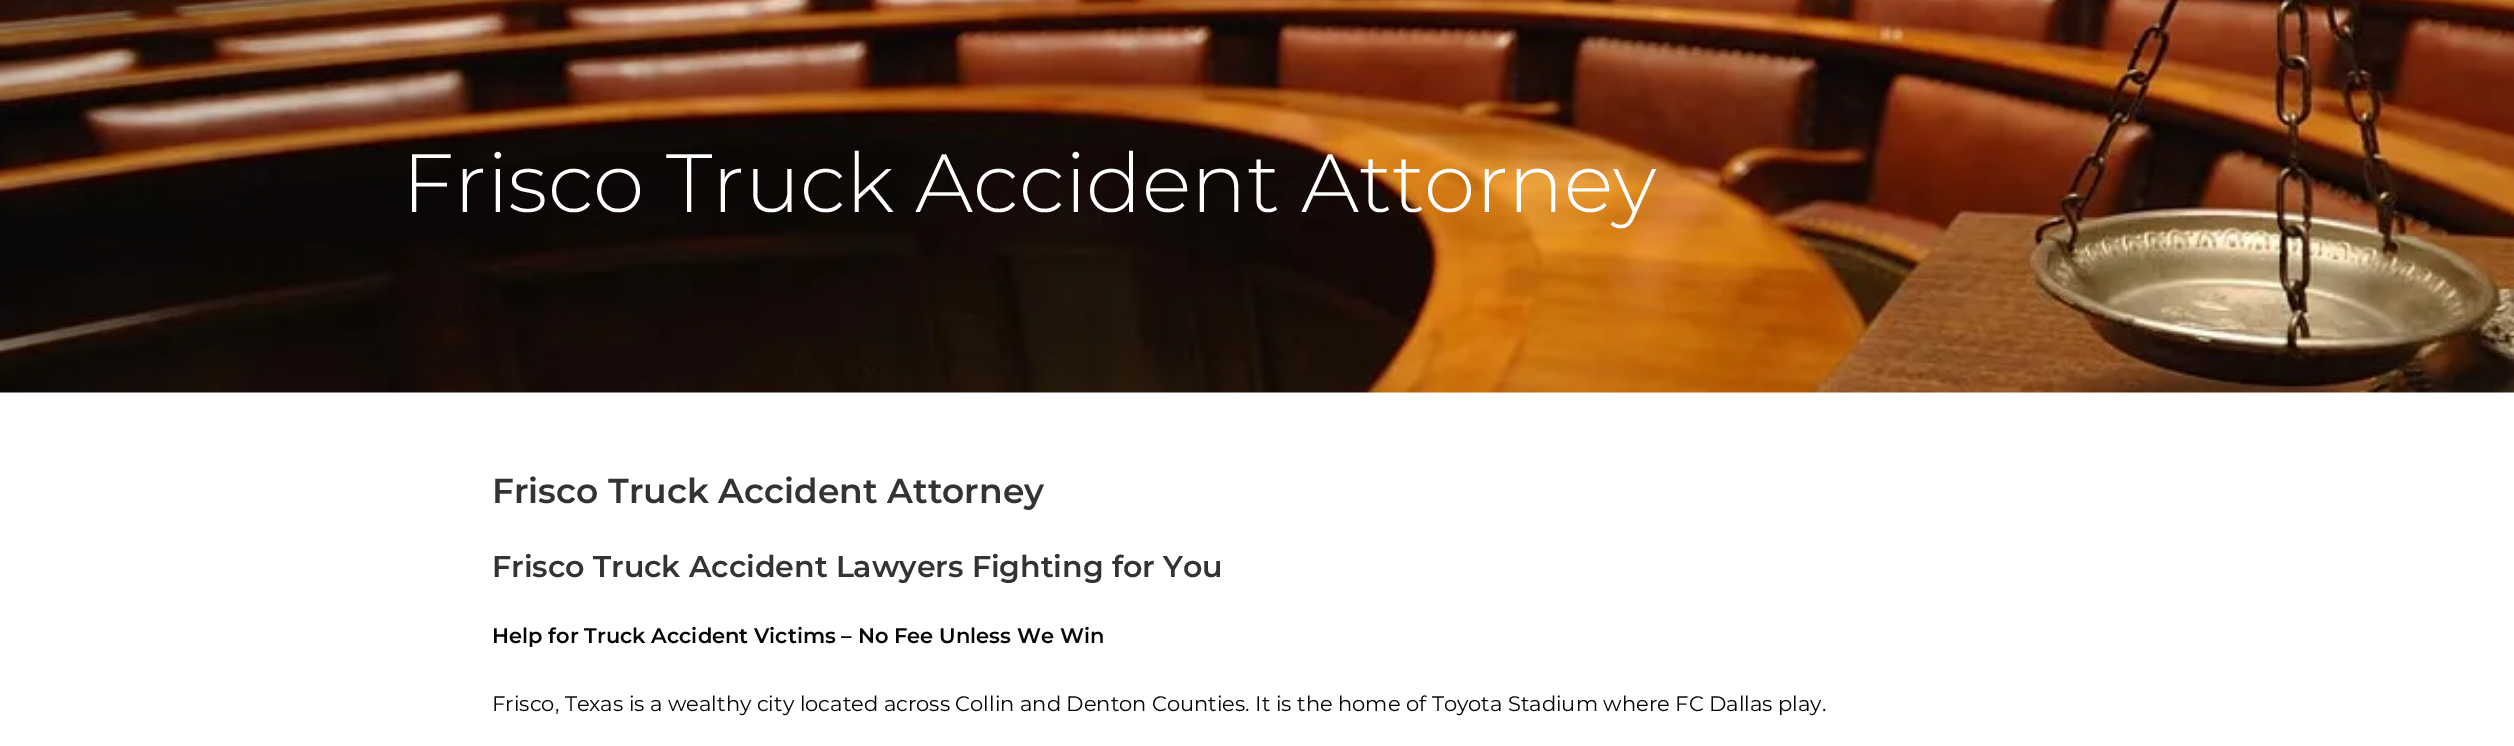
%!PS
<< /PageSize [2514 746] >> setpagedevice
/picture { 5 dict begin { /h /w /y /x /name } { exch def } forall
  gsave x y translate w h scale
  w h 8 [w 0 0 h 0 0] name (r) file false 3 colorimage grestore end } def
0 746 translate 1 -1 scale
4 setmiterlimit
1 setgray
0 0 2514 746 rectfill
(img1.rgb) 0 0 2514 393 picture
/Montserrat-Light [82.5 0 0 -82.5 0 0] selectfont
402 212 moveto (Frisco Truck Accident Attorney) show
/Montserrat-SemiBold [34.5 0 0 -34.5 0 0] selectfont
0.2 setgray
492 503 moveto (Frisco Truck Accident Attorney) show
/Montserrat-SemiBold [30 0 0 -30 0 0] selectfont
492 577 moveto (Frisco Truck Accident Lawyers Fighting for You) show
/Montserrat-SemiBold [21 0 0 -21 0 0] selectfont
0.027 setgray
492 643 moveto (Help for Truck Accident Victims – No Fee Unless We Win) show
/Montserrat-Regular [21 0 0 -21 0 0] selectfont
492 711 moveto (Frisco, Texas is a wealthy city located across Collin and Denton Counties. It is the home of Toyota Stadium where FC Dallas play.) show
showpage
